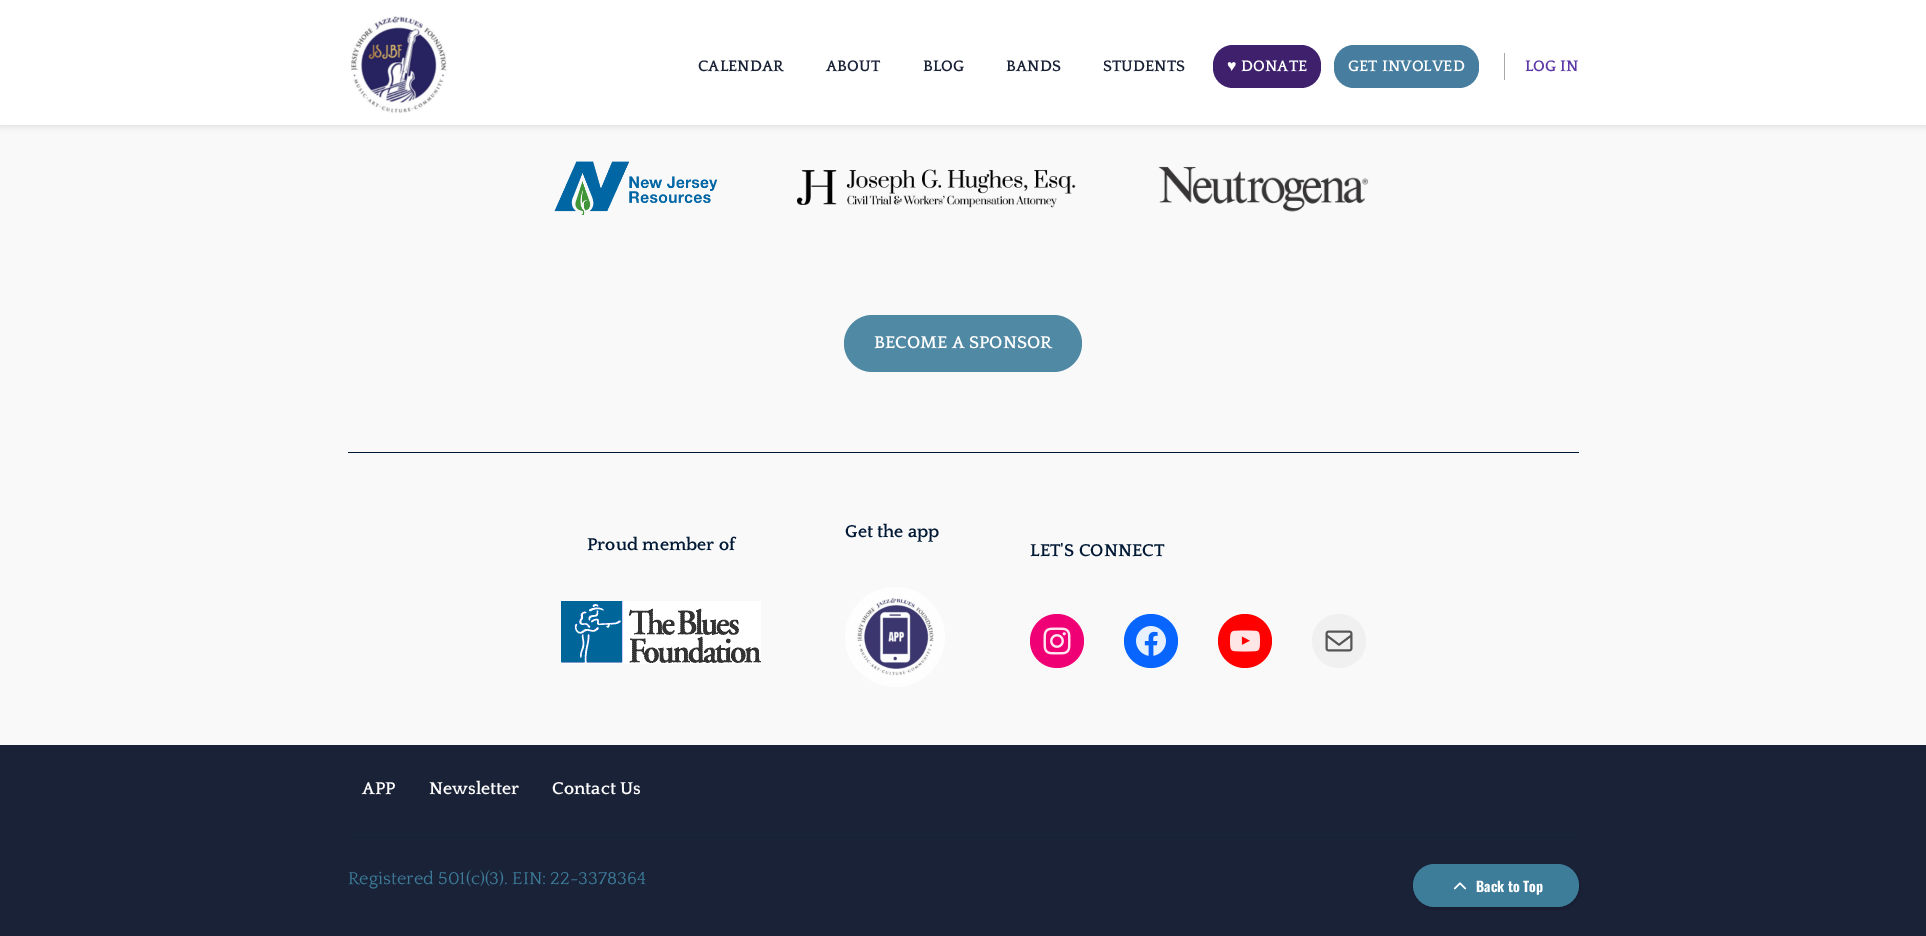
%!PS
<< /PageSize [1926 936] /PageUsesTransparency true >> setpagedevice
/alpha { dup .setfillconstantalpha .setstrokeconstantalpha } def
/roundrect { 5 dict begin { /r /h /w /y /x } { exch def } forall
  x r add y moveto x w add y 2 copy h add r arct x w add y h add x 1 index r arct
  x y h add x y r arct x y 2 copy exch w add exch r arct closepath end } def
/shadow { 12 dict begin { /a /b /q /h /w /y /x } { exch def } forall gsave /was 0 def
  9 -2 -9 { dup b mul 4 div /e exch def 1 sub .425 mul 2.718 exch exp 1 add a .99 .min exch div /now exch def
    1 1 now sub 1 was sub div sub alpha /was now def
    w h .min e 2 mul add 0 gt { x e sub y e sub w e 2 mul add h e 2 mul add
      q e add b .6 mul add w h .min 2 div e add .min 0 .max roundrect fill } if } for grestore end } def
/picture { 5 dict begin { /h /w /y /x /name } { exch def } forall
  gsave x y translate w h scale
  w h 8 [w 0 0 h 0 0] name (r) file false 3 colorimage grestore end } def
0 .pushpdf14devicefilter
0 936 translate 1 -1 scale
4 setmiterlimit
0.102 0.133 0.22 setrgbcolor
0 0 1926 936 rectfill
0.976 setgray
0 125 1926 620 rectfill
0 setgray
0 2 1926 125 0 3 0.1 shadow
1 setgray
0 0 1926 125 rectfill
(img1.rgb) 351 15 96 98 picture
/Quattrocento-Bold [16 0 0 -16 0 0] selectfont
0.102 0.133 0.22 setrgbcolor
698 71 moveto (CALENDAR) show
826 71 moveto (ABOUT) show
923 71 moveto (BLOG) show
1006 71 moveto (BANDS) show
1103 71 moveto (STUDENTS) show
0.243 0.125 0.427 setrgbcolor
1213 45 108 43 20 roundrect fill
/LiberationSerif-Bold [16 0 0 -16 0 0] selectfont
0.996 setgray
1227 71 moveto (♥) show
/Quattrocento-Bold [16 0 0 -16 0 0] selectfont
1241 71 moveto (DONATE) show
0.278 0.49 0.62 setrgbcolor
1334 45 145 43 20 roundrect fill
0.996 setgray
1348 71 moveto (GET INVOLVED) show
0.663 setgray
1504 53 1 27 rectfill
0.365 0.227 0.659 setrgbcolor
1525 71 moveto (LOG IN) show
(img2.rgb) 554 161 163 54 picture
(img3.rgb) 797 169 279 39 picture
(img4.rgb) 1158 166 211 46 picture
0.314 0.537 0.643 setrgbcolor
844 315 238 57 28.5 roundrect fill
/Quattrocento-Bold [18 0 0 -18 0 0] selectfont
0.996 setgray
874 348 moveto (BECOME A SPONSOR) show
0.004 0.098 0.208 setrgbcolor
348 452 1231 1 rectfill
845 537 moveto (Get the app) show
(img5.rgb) 845 587 100 100 picture
587 550 moveto (Proud member of) show
(img6.rgb) 561 601 200 63 picture
1030 556 moveto (LET'S CONNECT) show
0.941 0 0.459 setrgbcolor
newpath 1057 641 27 0 360 arc closepath fill
(img7.rgb) 1043 627 28 28 picture
0.031 0.4 1 setrgbcolor
newpath 1151 641 27 0 360 arc closepath fill
(img8.rgb) 1136 626 30 30 picture
1 0 0 setrgbcolor
newpath 1245 641 27 0 360 arc closepath fill
(img9.rgb) 1230 630 30 22 picture
0.941 setgray
newpath 1339 641 27 0 360 arc closepath fill
(img10.rgb) 1325 630 28 22 picture
0.09 0.161 0.224 setrgbcolor
348 834 1231 1 rectfill
0.996 setgray
362 794 moveto (APP) show
429 794 moveto (Newsletter) show
552 794 moveto (Contact Us) show
/Quattrocento-Regular [18 0 0 -18 0 0] selectfont
0.239 0.49 0.604 setrgbcolor
348 884 moveto (Registered 501\(c\)\(3\). EIN: 22-3378364) show
0 setgray
1414 866 166 43 21.5 2 0.2 shadow
0.239 0.49 0.604 setrgbcolor
1413 864 166 43 21.5 roundrect fill
(img11.rgb) 1453 882 14 8 picture
/Oswald-Bold [14 0 0 -14 0 0] selectfont
0.996 setgray
1476 892 moveto (Back to Top) show
.poppdf14devicefilter showpage
